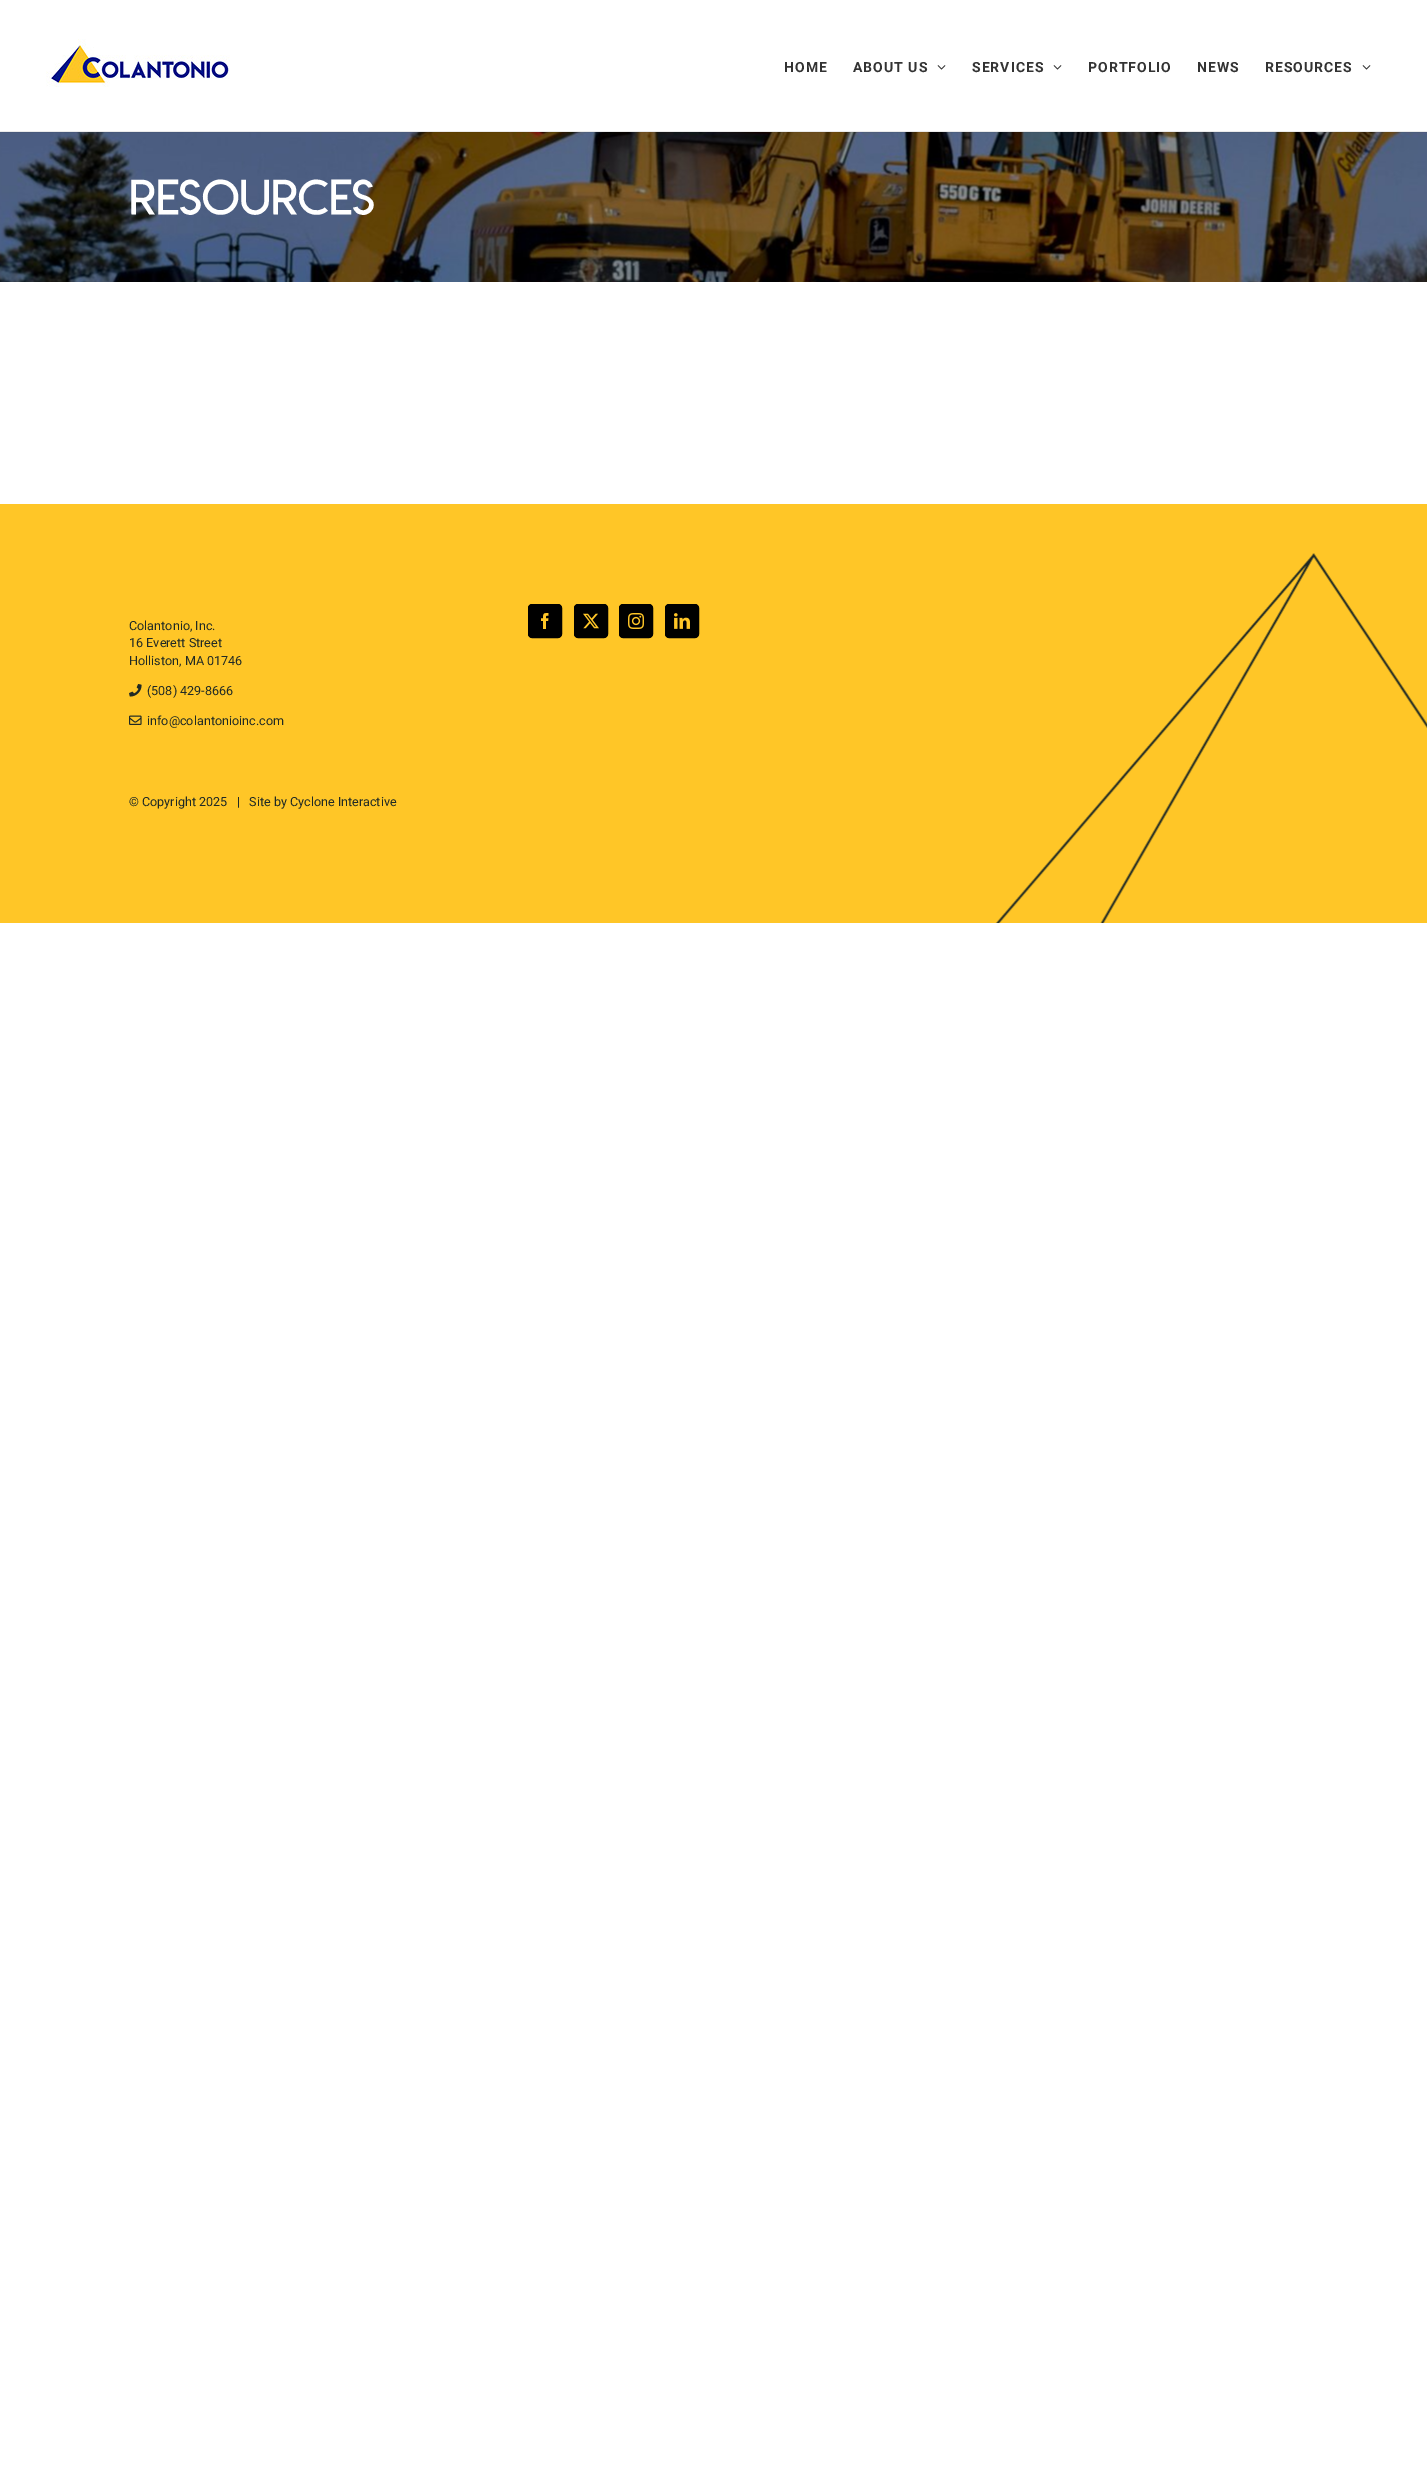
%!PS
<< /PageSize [1427 2487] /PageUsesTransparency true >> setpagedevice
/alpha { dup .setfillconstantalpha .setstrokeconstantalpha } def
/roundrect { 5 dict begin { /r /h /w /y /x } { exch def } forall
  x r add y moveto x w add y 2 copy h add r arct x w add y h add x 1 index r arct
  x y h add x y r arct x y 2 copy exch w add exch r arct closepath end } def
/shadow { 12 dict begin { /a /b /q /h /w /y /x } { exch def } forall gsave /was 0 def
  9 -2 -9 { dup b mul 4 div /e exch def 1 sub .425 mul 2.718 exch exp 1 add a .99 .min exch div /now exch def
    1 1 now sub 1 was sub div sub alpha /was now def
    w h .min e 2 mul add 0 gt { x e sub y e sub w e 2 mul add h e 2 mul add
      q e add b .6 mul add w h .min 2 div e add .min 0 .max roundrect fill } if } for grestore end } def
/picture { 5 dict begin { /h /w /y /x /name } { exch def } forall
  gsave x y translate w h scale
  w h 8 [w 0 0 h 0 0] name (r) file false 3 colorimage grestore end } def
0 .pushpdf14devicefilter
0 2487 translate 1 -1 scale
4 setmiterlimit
1 setgray
0 0 1427 2487 rectfill
(img3.rgb) 0 132 1427 150 picture
gsave
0 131 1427 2 rectclip
0 setgray
0 1 1427 131 0 1.5 0.12 shadow
grestore
(img1.rgb) 46 39 184 48 picture
/Roboto-Bold [14 0 0 -14 0 0] selectfont
0.2 setgray
784 72 moveto 1 0 (HOME) ashow
853 72 moveto 1 0 (ABOUT US) ashow
(img2.rgb) 937 65 9 5 picture
972 72 moveto 1 0 (SERVICES) ashow
(img2.rgb) 1053 65 9 5 picture
1088 72 moveto 1 0 (PORTFOLIO) ashow
1197 72 moveto 1 0 (NEWS) ashow
1265 72 moveto 1 0 (RESOURCES) ashow
(img2.rgb) 1362 65 9 5 picture
/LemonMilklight-Light [48 0 0 -48 0 0] selectfont
1 setgray
129 216 moveto (Resources) show
1 0.776 0.153 setrgbcolor
0 504 1427 419 rectfill
(img4.rgb) 995 553 432 370 picture
/Roboto-Regular [12.6 0 0 -12.6 0 0] selectfont
0.125 0.165 0.145 setrgbcolor
129 630 moveto (Colantonio, Inc.) show
129 647 moveto (16 Everett Street) show
129 665 moveto (Holliston, MA 01746) show
(img5.rgb) 129 684 13 13 picture
147 695 moveto (\(508\) 429-8666) show
(img6.rgb) 129 715 13 10 picture
147 725 moveto (info@colantonioinc.com) show
129 806 moveto (© Copyright 2025   |   Site by Cyclone Interactive) show
0 setgray
528.5 604.5 33 33 3.5 roundrect gsave fill grestore
stroke
(img7.rgb) 541 613 8 16 picture
574.5 604.5 33 33 3.5 roundrect gsave fill grestore
stroke
(img8.rgb) 583 613 16 16 picture
619.5 604.5 33 33 3.5 roundrect gsave fill grestore
stroke
(img9.rgb) 628 613 16 16 picture
665.5 604.5 33 33 3.5 roundrect gsave fill grestore
stroke
(img10.rgb) 674 613 16 16 picture
.poppdf14devicefilter showpage
